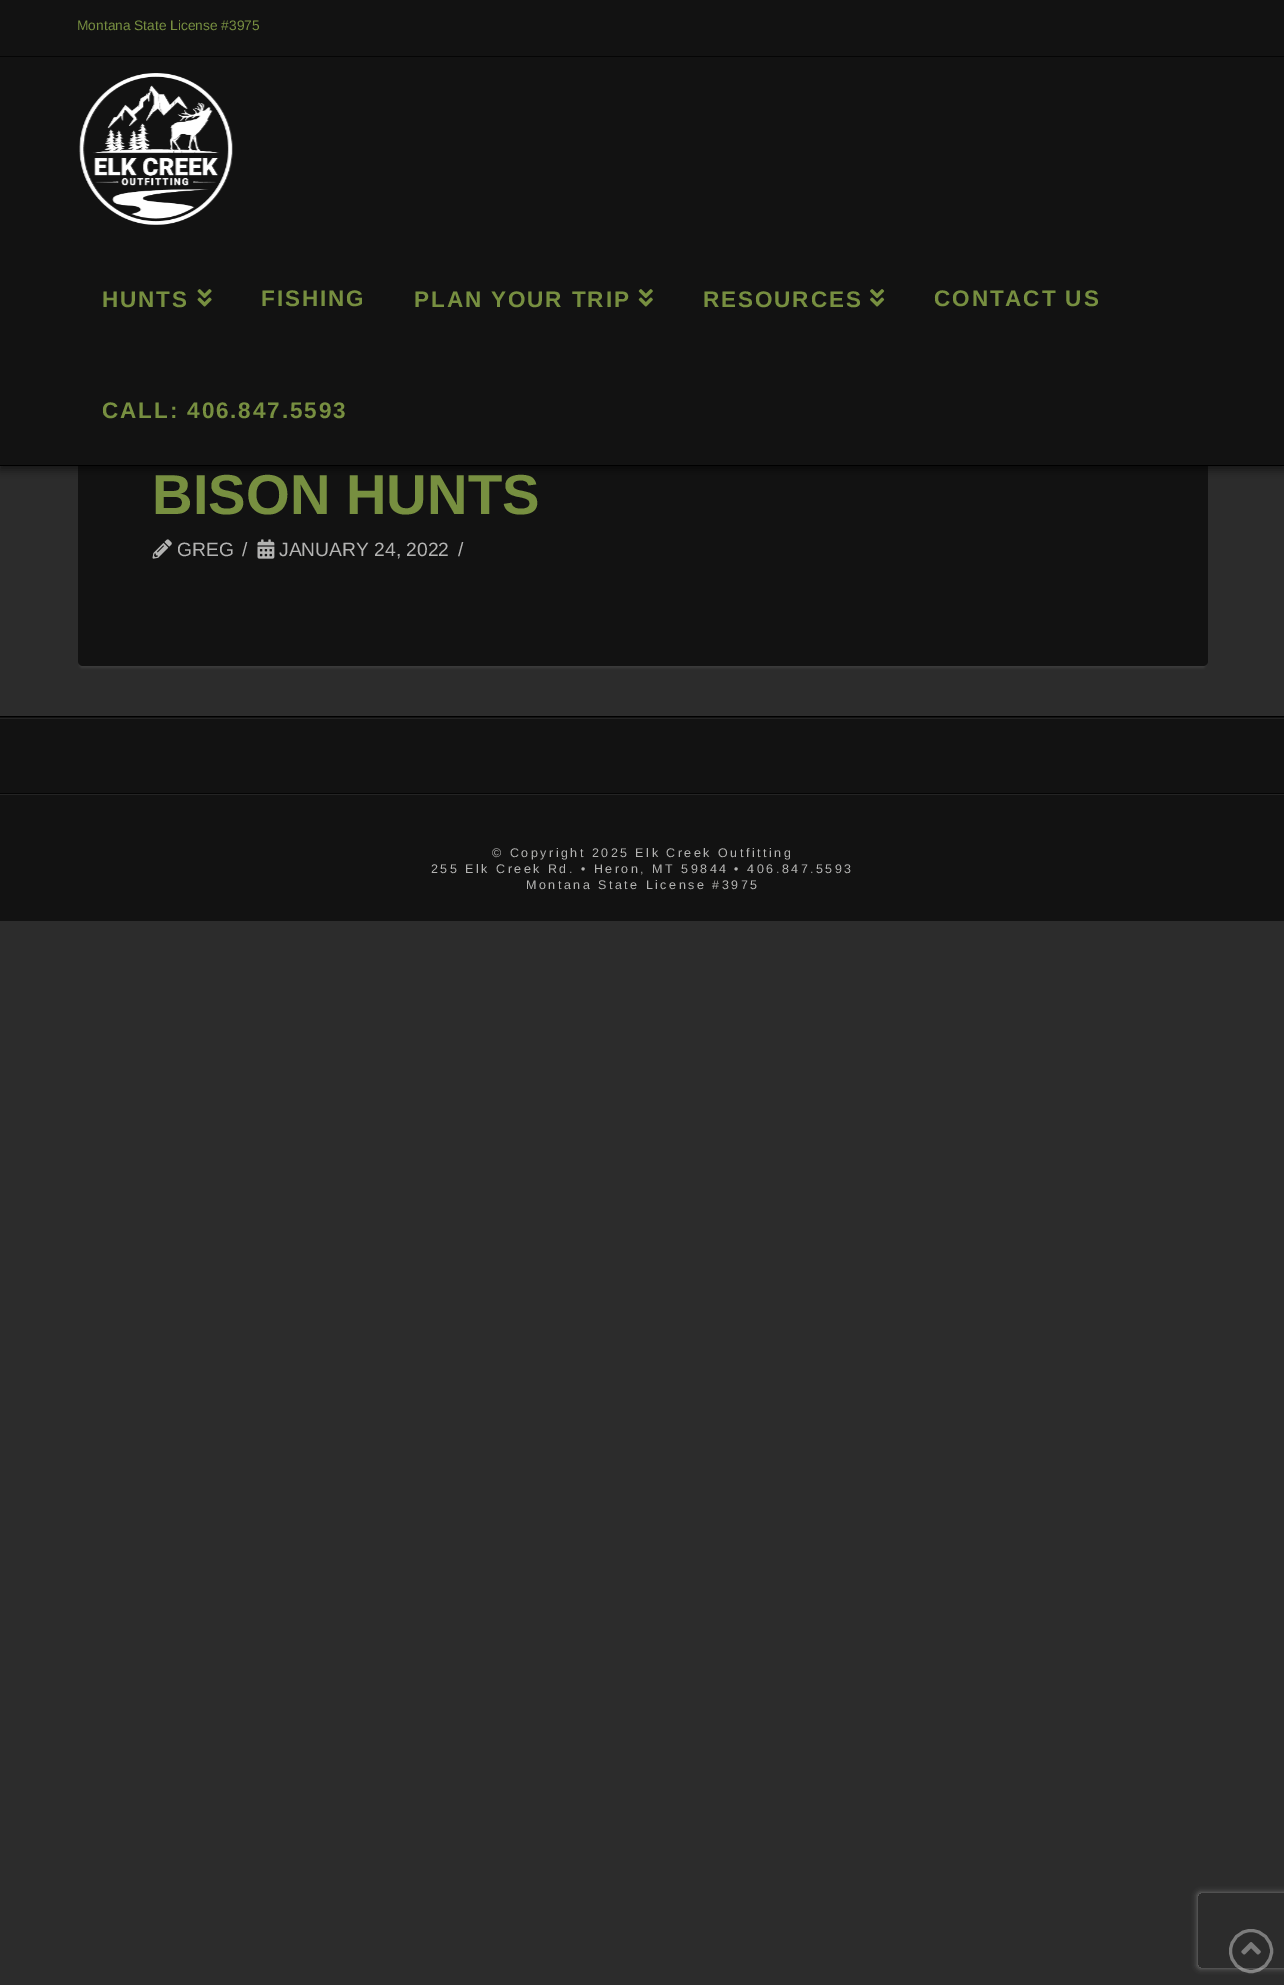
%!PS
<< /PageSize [1284 1985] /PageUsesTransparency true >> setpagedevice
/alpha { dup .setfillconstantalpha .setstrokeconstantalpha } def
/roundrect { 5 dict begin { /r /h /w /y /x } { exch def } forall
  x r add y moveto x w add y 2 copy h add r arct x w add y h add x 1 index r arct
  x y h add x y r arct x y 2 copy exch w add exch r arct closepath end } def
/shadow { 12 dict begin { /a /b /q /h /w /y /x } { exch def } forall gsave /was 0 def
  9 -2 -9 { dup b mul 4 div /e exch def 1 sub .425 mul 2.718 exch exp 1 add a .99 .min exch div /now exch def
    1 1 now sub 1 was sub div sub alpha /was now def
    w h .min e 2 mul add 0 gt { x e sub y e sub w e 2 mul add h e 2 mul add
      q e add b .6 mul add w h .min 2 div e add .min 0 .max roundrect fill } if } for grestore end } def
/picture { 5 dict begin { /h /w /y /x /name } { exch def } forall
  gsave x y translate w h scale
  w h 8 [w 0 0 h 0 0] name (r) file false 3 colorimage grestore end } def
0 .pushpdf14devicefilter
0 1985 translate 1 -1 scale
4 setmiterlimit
0.173 setgray
0 0 1284 1985 rectfill
1 setgray
80 226 1125 442 2.5 1 0.07 shadow
0.071 setgray
78 220 1130 446 5 roundrect fill
0 setgray
0 61 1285 409 0 4 0.47 shadow
0.071 setgray
0 0 1284 465 rectfill
0.02 setgray
0 56 1284 1 rectfill
/LiberationSans-Regular [13.75 0 0 -13.75 0 0] selectfont
0.467 0.561 0.251 setrgbcolor
77 30 moveto (Montana State License #3975) show
0 setgray
0 465 1284 1 rectfill
(img1.rgb) 79 73 154 152 picture
/LiberationSans-Bold [22.5 0 0 -22.5 0 0] selectfont
0.467 0.561 0.251 setrgbcolor
102 307 moveto 1.9 0 (HUNTS) ashow
(img2.rgb) 197 289 15 18 picture
261 306 moveto 1.9 0 (FISHING) ashow
414 307 moveto 1.9 0 (PLAN YOUR TRIP) ashow
(img3.rgb) 638 289 15 18 picture
703 307 moveto 1.9 0 (RESOURCES) ashow
(img4.rgb) 870 289 15 18 picture
934 306 moveto 1.9 0 (CONTACT US) ashow
102 418 moveto 1.9 0 (CALL: 406.847.5593) ashow
/LiberationSans-Bold [56.25 0 0 -56.25 0 0] selectfont
152 514 moveto (BISON HUNTS) show
(img5.rgb) 152 539 20 20 picture
/LiberationSans-Regular [19.25 0 0 -19.25 0 0] selectfont
0.702 0.702 0.698 setrgbcolor
177 556 moveto (GREG) show
242 556 moveto (/) show
(img6.rgb) 257 539 18 20 picture
279 556 moveto (JANUARY 24, 2022) show
458 556 moveto (/) show
0.071 setgray
0 717 1284 76 rectfill
0.141 setgray
0 718 1284 1 rectfill
0 setgray
0 716 1284 1 rectfill
0.071 setgray
0 795 1284 126 rectfill
0.141 setgray
0 794 1284 1 rectfill
0.02 setgray
0 793 1284 1 rectfill
/LiberationSans-Regular [12.5 0 0 -12.5 0 0] selectfont
0.702 0.702 0.698 setrgbcolor
492 857 moveto 2.5 0 (© Copyright 2025 Elk Creek Outfitting) ashow
431 873 moveto 2.5 0 (255 Elk Creek Rd. • Heron, MT 59844 • 406.847.5593) ashow
526 889 moveto 2.5 0 (Montana State License #3975) ashow
gsave
newpath 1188 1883 moveto 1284 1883 lineto 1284 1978 lineto 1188 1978 lineto closepath 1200.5 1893 moveto 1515.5 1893 lineto 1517 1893 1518 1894 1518 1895.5 curveto 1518 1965.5 lineto 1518 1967 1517 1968 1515.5 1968 curveto 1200.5 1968 lineto 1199 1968 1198 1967 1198 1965.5 curveto 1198 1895.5 lineto 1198 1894 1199 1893 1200.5 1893 curveto closepath eoclip newpath
0.502 setgray
1198 1893 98 75 2.5 3 1 shadow
grestore
0.38 alpha
1 setgray
3 setlinewidth
newpath 1251 1951 20.5 0 360 arc closepath stroke
1 alpha
(img7.rgb) 1241 1942 20 13 picture
.poppdf14devicefilter showpage
